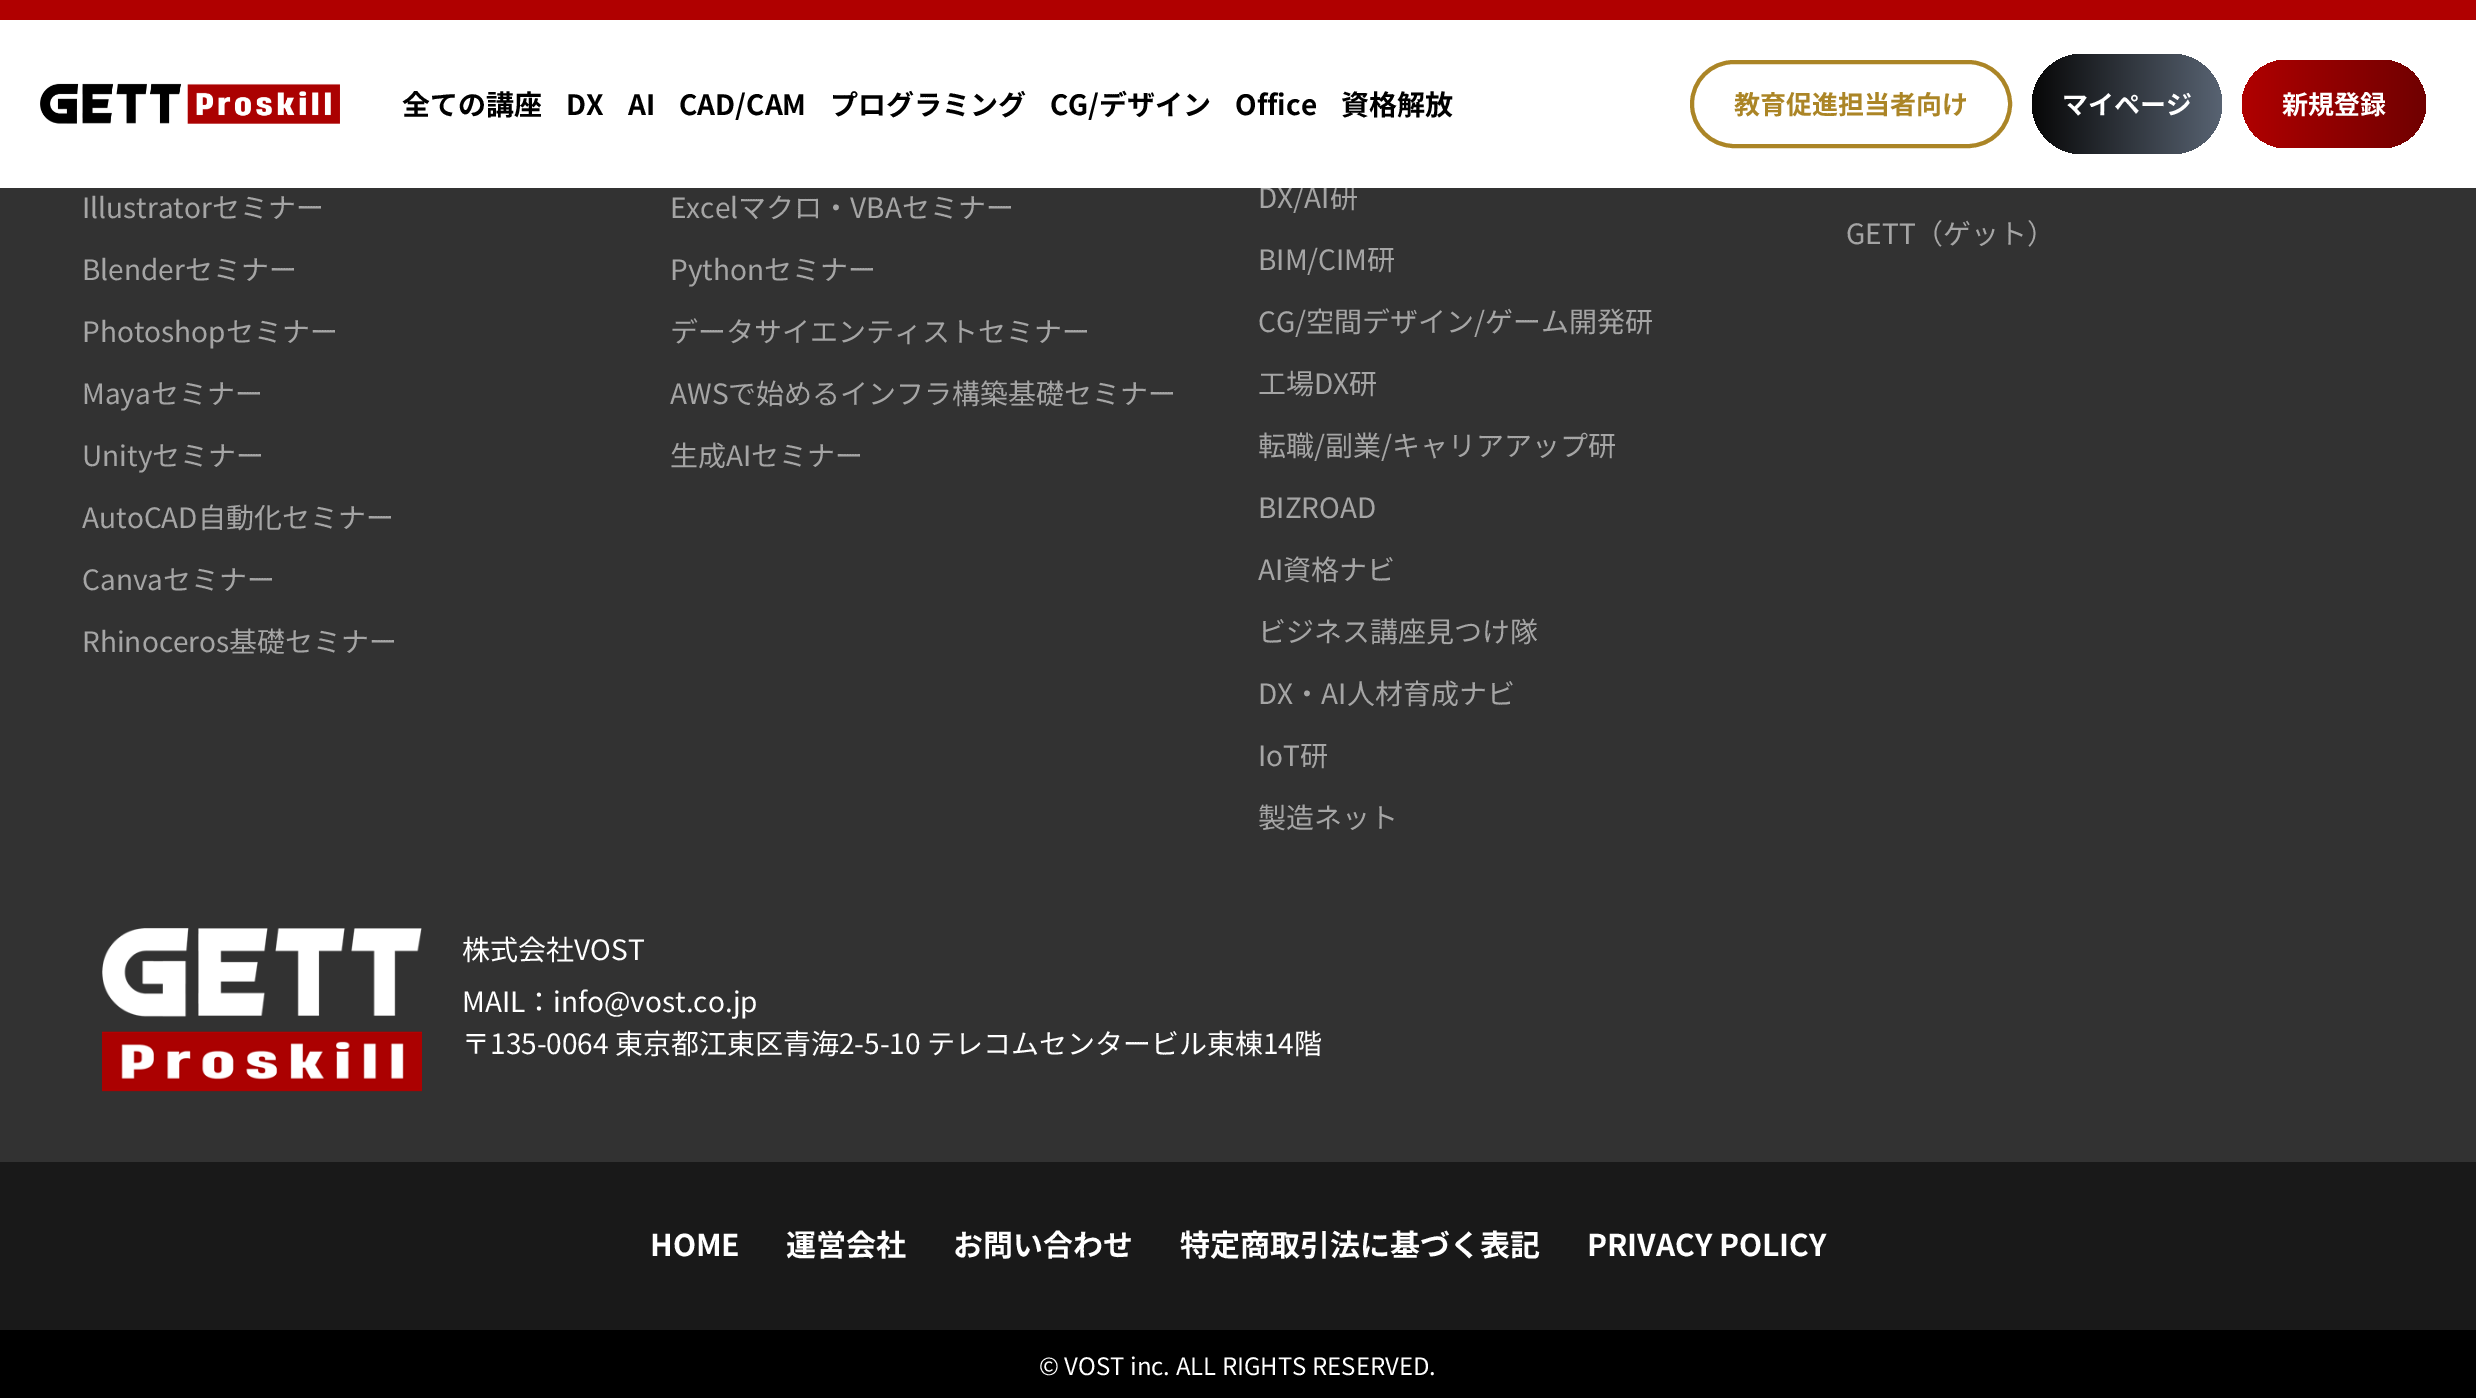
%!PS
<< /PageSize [2476 1398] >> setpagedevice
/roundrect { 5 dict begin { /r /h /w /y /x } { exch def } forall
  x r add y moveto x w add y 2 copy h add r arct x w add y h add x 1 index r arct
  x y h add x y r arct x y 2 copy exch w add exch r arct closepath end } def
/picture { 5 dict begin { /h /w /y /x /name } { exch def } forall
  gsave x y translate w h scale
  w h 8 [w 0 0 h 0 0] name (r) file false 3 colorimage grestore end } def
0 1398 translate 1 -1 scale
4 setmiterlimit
0.098 setgray
0 0 2476 1398 rectfill
0.196 setgray
0 188 2476 974 rectfill
/NotoSansCJKJP-Regular [28 0 0 -28 0 0] selectfont
0.647 setgray
1258 208 moveto (DX/AI研) show
1 setgray
0 20 2476 168 rectfill
0.69 0 0 setrgbcolor
0 0 2476 20 rectfill
(img1.rgb) 40 83 300 41 picture
/NotoSansCJKJP-Bold [28 0 0 -28 0 0] selectfont
0 setgray
402 115 moveto (全ての講座) show
566 115 moveto (DX) show
628 115 moveto (AI) show
679 115 moveto (CAD/CAM) show
830 115 moveto (プログラミング) show
1050 115 moveto (CG/デザイン) show
1235 115 moveto (Office) show
1341 115 moveto (資格解放) show
0.671 0.522 0.149 setrgbcolor
4 setlinewidth
1692 62 318 84 42 roundrect stroke
/NotoSansCJKJP-Bold [26 0 0 -26 0 0] selectfont
1734 114 moveto (教育促進担当者向け) show
gsave 2032 54 190 100 50 roundrect clip newpath
<< /ShadingType 2 /ColorSpace /DeviceRGB /Coords [2032 104 2222 104] /Extend [true true] /Function << /FunctionType 2 /Domain [0 1] /C0 [0.027 0.027 0.027] /C1 [0.345 0.388 0.447] /N 1 >> >> shfill grestore
1 setgray
2062 114 moveto (マイページ) show
gsave 2242 60 184 88 44 roundrect clip newpath
<< /ShadingType 2 /ColorSpace /DeviceRGB /Coords [2242 104 2426 104] /Extend [true true] /Function << /FunctionType 2 /Domain [0 1] /C0 [0.69 0 0] /C1 [0.439 0 0] /N 1 >> >> shfill grestore
2282 114 moveto (新規登録) show
/NotoSansCJKJP-Regular [28 0 0 -28 0 0] selectfont
0.647 setgray
82 218 moveto (Illustratorセミナー) show
82 280 moveto (Blenderセミナー) show
82 342 moveto (Photoshopセミナー) show
82 404 moveto (Mayaセミナー) show
82 466 moveto (Unityセミナー) show
82 528 moveto (AutoCAD自動化セミナー) show
82 590 moveto (Canvaセミナー) show
82 652 moveto (Rhinoceros基礎セミナー) show
670 218 moveto (Excelマクロ・VBAセミナー) show
670 280 moveto (Pythonセミナー) show
670 342 moveto (データサイエンティストセミナー) show
670 404 moveto (AWSで始めるインフラ構築基礎セミナー) show
670 466 moveto (生成AIセミナー) show
1258 270 moveto (BIM/CIM研) show
1258 332 moveto (CG/空間デザイン/ゲーム開発研) show
1258 394 moveto (工場DX研) show
1258 456 moveto (転職/副業/キャリアアップ研) show
1258 518 moveto (BIZROAD) show
1258 580 moveto (AI資格ナビ) show
1258 642 moveto (ビジネス講座見つけ隊) show
1258 704 moveto (DX・AI人材育成ナビ) show
1258 766 moveto (IoT研) show
1258 828 moveto (製造ネット) show
1846 244 moveto (GETT（ゲット）) show
(img2.rgb) 102 928 320 164 picture
1 setgray
462 960 moveto (株式会社VOST) show
462 1012 moveto (MAIL：info@vost.co.jp) show
462 1054 moveto (〒135-0064 東京都江東区青海2-5-10 テレコムセンタービル東棟14階) show
/NotoSansCJKJP-Bold [30 0 0 -30 0 0] selectfont
650 1256 moveto (HOME) show
786 1256 moveto (運営会社) show
953 1256 moveto (お問い合わせ) show
1180 1256 moveto (特定商取引法に基づく表記) show
1587 1256 moveto (PRIVACY POLICY) show
0 setgray
0 1330 2476 68 rectfill
/NotoSansCJKJP-Regular [24 0 0 -24 0 0] selectfont
1 setgray
1039 1375 moveto (© VOST inc. ALL RIGHTS RESERVED.) show
showpage
